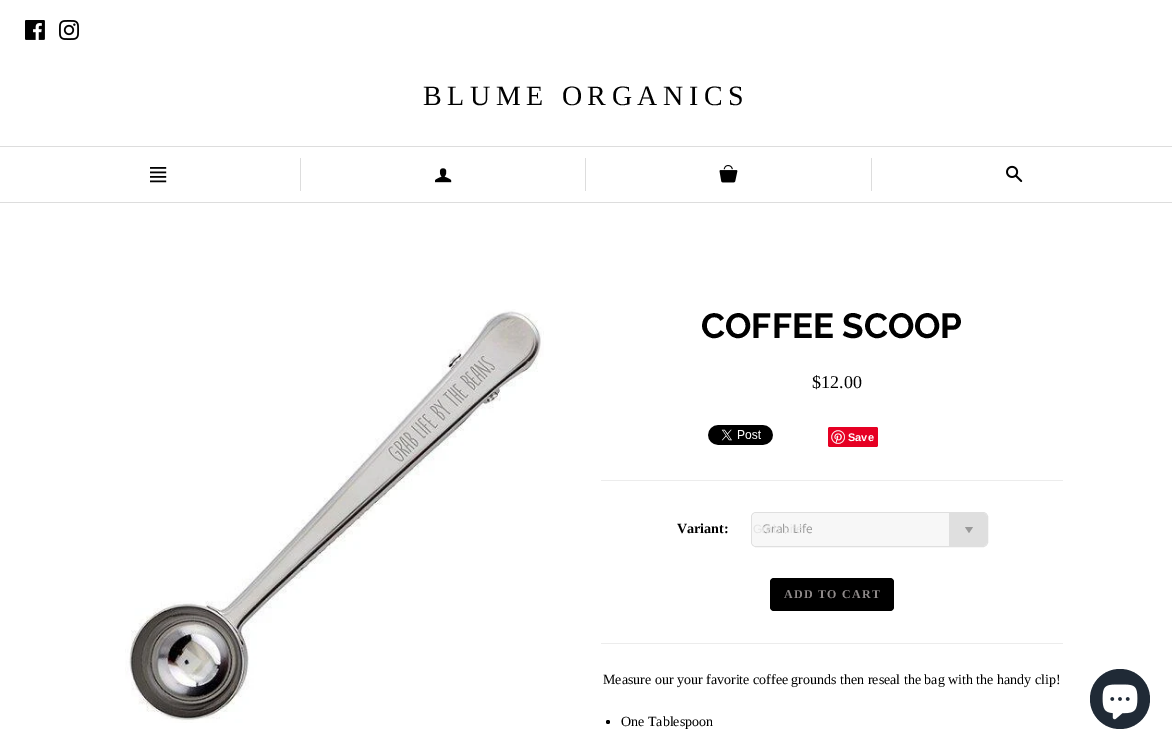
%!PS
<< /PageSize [1172 750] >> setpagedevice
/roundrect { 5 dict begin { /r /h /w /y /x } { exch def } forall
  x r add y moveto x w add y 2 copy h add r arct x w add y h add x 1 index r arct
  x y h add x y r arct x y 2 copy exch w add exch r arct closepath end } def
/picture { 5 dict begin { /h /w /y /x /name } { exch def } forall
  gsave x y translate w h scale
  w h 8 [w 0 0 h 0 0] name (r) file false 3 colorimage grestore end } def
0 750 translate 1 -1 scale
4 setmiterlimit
1 setgray
0 0 1172 750 rectfill
(img1.rgb) 25 20 20 20 picture
(img2.rgb) 59 20 20 20 picture
/LiberationSerif-Regular [28 0 0 -28 0 0] selectfont
0 setgray
423 105 moveto 5.6 0 (BLUME ORGANICS) ashow
0.867 setgray
0 146 1172 1 rectfill
0 202 1172 1 rectfill
(img3.rgb) 150 167 17 16 picture
300 158 1 33 rectfill
(img4.rgb) 435 168 17 15 picture
585 158 1 33 rectfill
(img5.rgb) 719 165 19 18 picture
871 158 1 33 rectfill
(img6.rgb) 1006 165 17 18 picture
(img7.rgb) 125 309 419 414 picture
/Raleway-Bold [35 0 0 -35 0 0] selectfont
0 setgray
701 338 moveto (COFFEE SCOOP) show
/LiberationSerif-Regular [18 0 0 -18 0 0] selectfont
812 388 moveto ($12.00) show
(img8.rgb) 708 425 65 20 picture
0.902 0 0.137 setrgbcolor
828 427 50 20 2 roundrect fill
(img9.rgb) 831 430 14 14 picture
/LiberationSans-Bold [11 0 0 -11 0 0] selectfont
1 setgray
848 441 moveto (Save) show
0.925 setgray
601 480 462 1 rectfill
/LiberationSerif-Bold [14 0 0 -14 0 0] selectfont
0 setgray
677 533 moveto (Variant:) show
0.875 setgray
751.5 512.5 236 34 4.5 roundrect stroke
0.969 setgray
752 513 235 33 4 roundrect fill
/OpenSans-Regular [12 0 0 -12 0 0] selectfont
0.6 setgray
762 533 moveto (Grab Life) show
0.875 setgray
newpath 949 513 moveto 983 513 lineto 985 513 987 515 987 517 curveto 987 542 lineto 987 544 985 546 983 546 curveto 949 546 lineto closepath fill
/LiberationSans-Regular [12 0 0 -12 0 0] selectfont
0.894 setgray
753 533 moveto (Grab Life) show
0.6 setgray
newpath 965 527 moveto 973 527 lineto 969 533 lineto closepath fill
0 setgray
770 578 124 33 4 roundrect fill
/LiberationSerif-Bold [12 0 0 -12 0 0] selectfont
0.561 0.541 0.541 setrgbcolor
784 598 moveto 1.25 0 (ADD TO CART) ashow
0.925 setgray
601 643 462 1 rectfill
/LiberationSerif-Regular [14 0 0 -14 0 0] selectfont
0 setgray
603 684 moveto (Measure our your favorite coffee grounds then reseal the bag with the handy clip!) show
0.004 setgray
newpath 608 722 2 0 360 arc closepath fill
0 setgray
621 726 moveto (One Tablespoon) show
0.125 0.165 0.212 setrgbcolor
newpath 1120 699 30 0 360 arc closepath fill
(img10.rgb) 1102 684 36 36 picture
showpage
